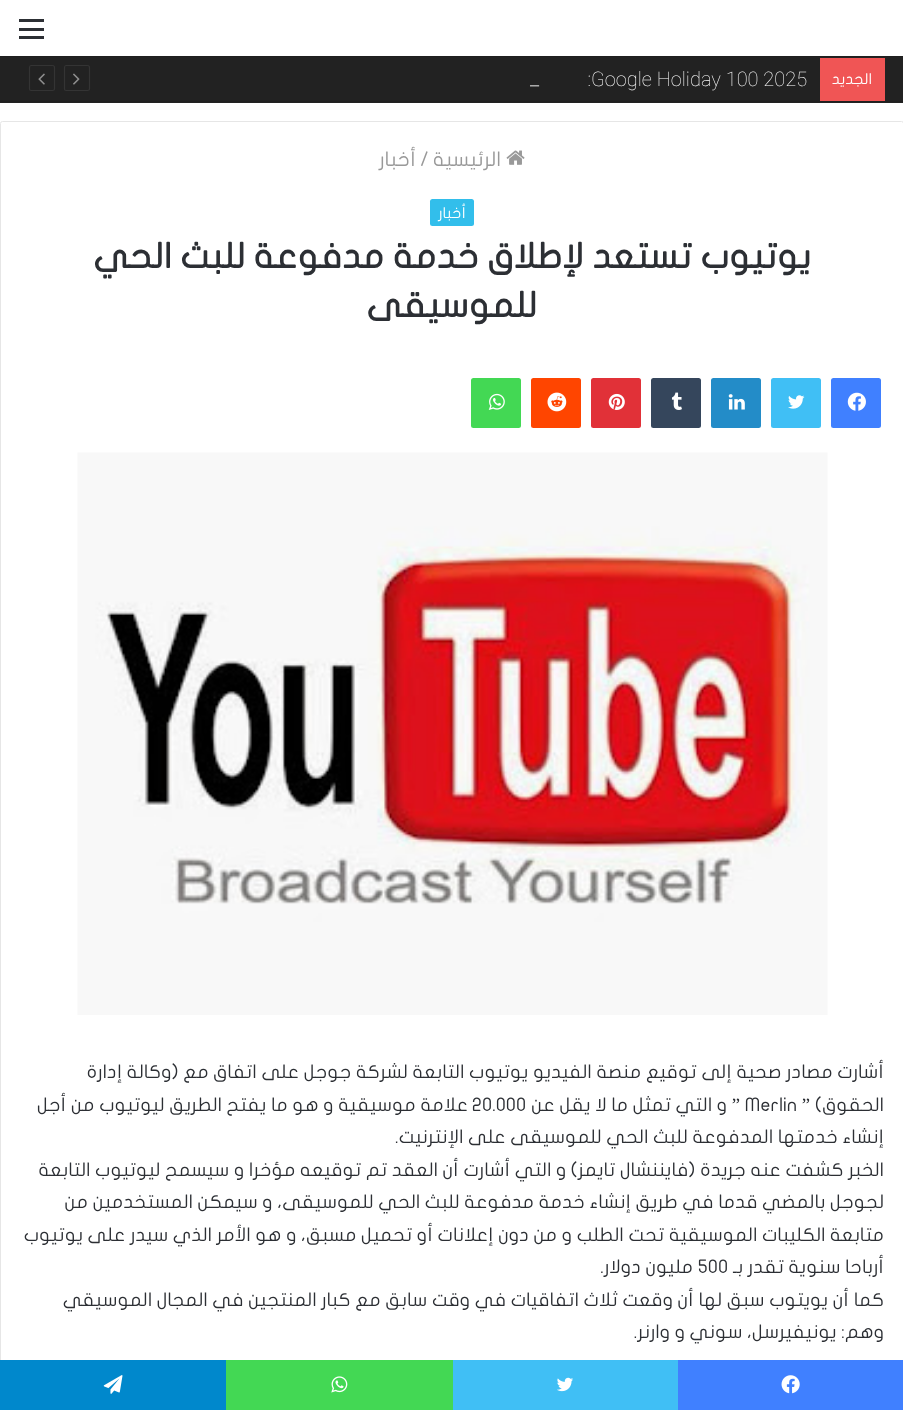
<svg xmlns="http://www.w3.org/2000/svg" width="903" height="1410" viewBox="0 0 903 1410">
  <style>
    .t1 { font: 15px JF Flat; direction: rtl; fill: #fff; }
    .t2 { font: 100 20px Roboto; fill: #fff; }
    .t3 { font: 100 20px Roboto; direction: rtl; fill: #fff; }
    .t4 { font: 20px JF Flat; fill: #aaa; }
    .t5 { font: 20px JF Flat; direction: rtl; fill: #999; }
    .t6 { font: 20px JF Flat; fill: #999; }
    .t7 { font: bold 35px JF Flat; direction: rtl; fill: #2c2f34; }
    .t8 { font: 18.75px JF Flat; direction: rtl; fill: #2c2f34; }
    .t9 { font: 18.75px Liberation Serif; direction: rtl; fill: #2c2f34; }
    .t10 { font: 18.75px JF Flat; fill: #2c2f34; }
  </style>
  <rect width="100%" height="100%" fill="#fff"/>
  <rect x="19" y="28" width="25" height="3" fill="#2c2f34"/>
  <rect x="19" y="19" width="25" height="3" fill="#2c2f34"/>
  <rect x="19" y="36" width="25" height="3" fill="#2c2f34"/>
  <rect x="0" y="57" width="903" height="46" fill="#222"/>
  <rect x="0" y="56" width="903" height="1" fill="#1f1f1f"/>
  <rect x="0" y="101" width="903" height="1" fill="#1f1f1f"/>
  <rect x="820" y="58" width="65" height="43" fill="#f05555"/>
  <text x="872" y="84" class="t1">الجديد</text>
  <text x="591" y="86" class="t2">Google Holiday 100 2025</text>
  <text x="591" y="86" class="t3">:</text>
  <text x="529" y="85" class="t4">_</text>
  <path d="M87.5 90.5H66C65 90.5 64.5 90 64.5 89V67.5C64.5 66.5 65 65.5 66 65.5H87.5C88.5 65.5 89.5 66.5 89.5 67.5V89C89.5 90 88.5 90.5 87.5 90.5Z" fill="none" stroke="#343434" stroke-width="1.2"/>
  <image x="73" y="73" width="7" height="12" href="images/1.png"/>
  <path d="M52.5 90.5H31C30 90.5 29.5 90 29.5 89V67.5C29.5 66.5 30 65.5 31 65.5H52.5C53.5 65.5 54.5 66.5 54.5 67.5V89C54.5 90 53.5 90.5 52.5 90.5Z" fill="none" stroke="#343434" stroke-width="1.2"/>
  <image x="38" y="73" width="7" height="12" href="images/2.png"/>
  <rect x="0.5" y="121.5" width="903" height="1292" rx="2" fill="none" stroke="#e6e6e6"/>
  <image x="506" y="150" width="19" height="15" href="images/3.png"/>
  <text x="501" y="166" class="t5">الرئيسية</text>
  <text x="420" y="166" class="t6">/</text>
  <text x="416" y="166" class="t5">أخبار</text>
  <rect x="430" y="199" width="44" height="27" rx="2.5" fill="#32beeb"/>
  <text x="466" y="218" class="t1">أخبار</text>
  <text x="811" y="268" class="t7">يوتيوب تستعد لإطلاق خدمة مدفوعة للبث الحي</text>
  <text x="537" y="317" class="t7">للموسيقى</text>
  <rect x="831" y="378" width="50" height="50" rx="2.5" fill="#4080ff"/>
  <image x="847" y="392" width="19" height="19" href="images/4.png"/>
  <rect x="771" y="378" width="50" height="50" rx="2.5" fill="#40bff5"/>
  <image x="788" y="395" width="17" height="14" href="images/5.png"/>
  <rect x="711" y="378" width="50" height="50" rx="2.5" fill="#238cc8"/>
  <image x="728" y="394" width="17" height="16" href="images/6.png"/>
  <rect x="651" y="378" width="50" height="50" rx="2.5" fill="#35465c"/>
  <image x="671" y="392" width="11" height="18" href="images/7.png"/>
  <rect x="591" y="378" width="50" height="50" rx="2.5" fill="#e13138"/>
  <image x="608" y="393" width="17" height="17" href="images/8.png"/>
  <rect x="531" y="378" width="50" height="50" rx="2.5" fill="#ff4500"/>
  <image x="547" y="392" width="20" height="20" href="images/9.png"/>
  <rect x="471" y="378" width="50" height="50" rx="2.5" fill="#43d854"/>
  <image x="488" y="393" width="17" height="17" href="images/10.png"/>
  <image x="77" y="452" width="751" height="563" href="images/11.png"/>
  <text x="884" y="1078" class="t8">أشارت مصادر صحية إلى توقيع منصة الفيديو يوتيوب التابعة لشركة جوجل على اتفاق مع (وكالة إدارة</text>
  <text x="884" y="1111" class="t8">الحقوق)</text>
  <text x="810" y="1111" class="t9">”</text>
  <text x="745" y="1111" class="t10">Merlin</text>
  <text x="740" y="1111" class="t9">”</text>
  <text x="727" y="1111" class="t8">و التي تمثل ما لا يقل عن</text>
  <text x="472" y="1111" class="t10">20.000</text>
  <text x="468" y="1111" class="t8">علامة موسيقية و هو ما يفتح الطريق ليوتيوب من أجل</text>
  <text x="884" y="1143" class="t8">إنشاء خدمتها المدفوعة للبث الحي للموسيقى على الإنترنيت.</text>
  <text x="884" y="1176" class="t8">الخبر كشفت عنه جريدة (فايننشال تايمز) و التي أشارت أن العقد تم توقيعه مؤخرا و سيسمح ليوتيوب التابعة</text>
  <text x="884" y="1208" class="t8">لجوجل بالمضي قدما في طريق إنشاء خدمة مدفوعة للبث الحي للموسيقى، و سيمكن المستخدمين من</text>
  <text x="884" y="1241" class="t8">متابعة الكليبات الموسيقية تحت الطلب و من دون إعلانات أو تحميل مسبق، و هو الأمر الذي سيدر على يوتيوب</text>
  <text x="884" y="1273" class="t8">أرباحا سنوية تقدر بـ</text>
  <text x="698" y="1273" class="t10">500</text>
  <text x="693" y="1273" class="t8">مليون دولار.</text>
  <text x="884" y="1306" class="t8">كما أن يويتوب سبق لها أن وقعت ثلاث اتفاقيات في وقت سابق مع كبار المنتجين في المجال الموسيقي</text>
  <text x="884" y="1338" class="t8">وهم: يونيفيرسل، سوني و وارنر.</text>
  <rect x="678" y="1360" width="225" height="50" fill="#4080ff"/>
  <image x="781" y="1375" width="19" height="19" href="images/12.png"/>
  <rect x="453" y="1360" width="225" height="50" fill="#40bff5"/>
  <image x="557" y="1377" width="16" height="15" href="images/13.png"/>
  <rect x="226" y="1360" width="227" height="50" fill="#43d854"/>
  <image x="331" y="1376" width="17" height="17" href="images/14.png"/>
  <rect x="0" y="1360" width="226" height="50" fill="#08c"/>
  <image x="103" y="1375" width="20" height="19" href="images/15.png"/>
</svg>
